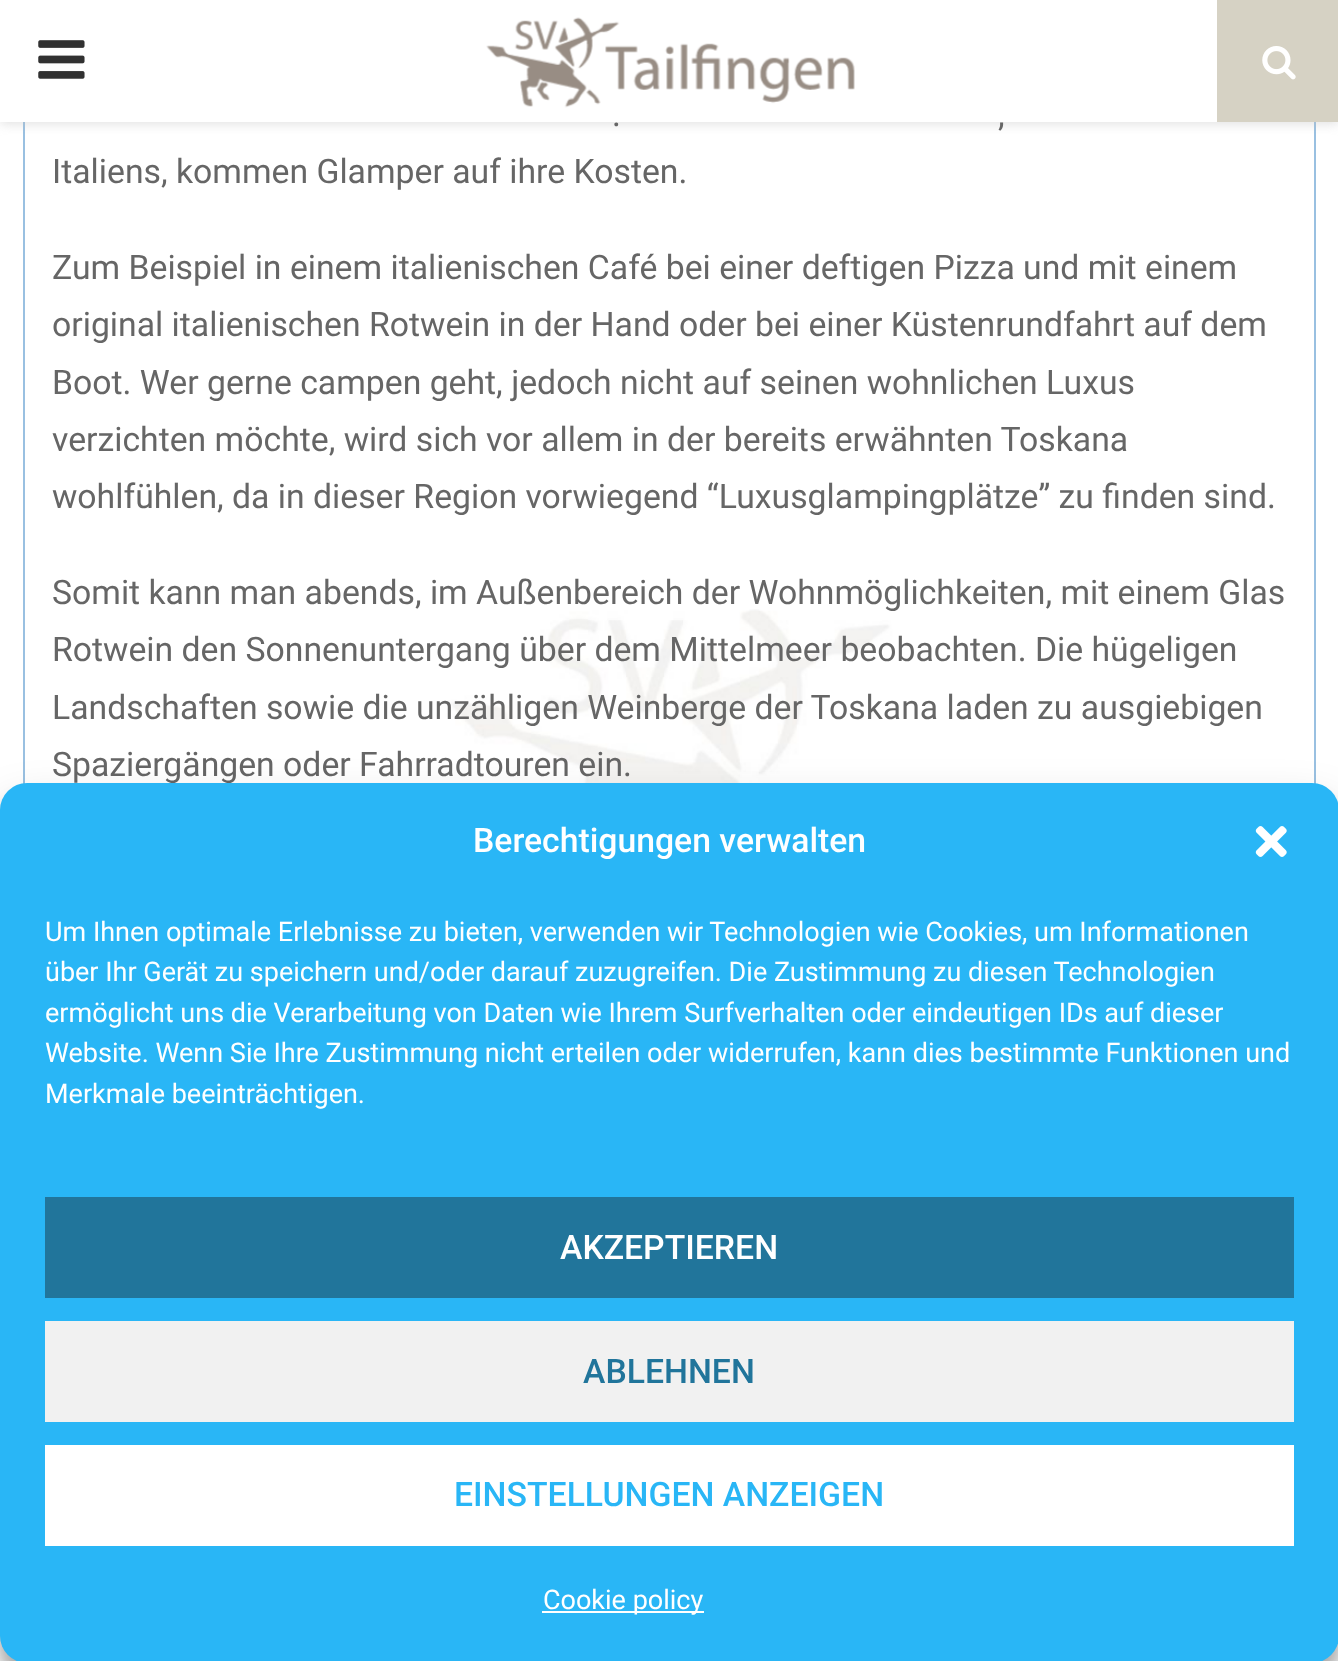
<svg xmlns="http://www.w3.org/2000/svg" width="1338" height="1661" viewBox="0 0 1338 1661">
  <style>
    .t1 { font: 33.75px Roboto; fill: #666; }
    .t2 { font: 500 33.75px Roboto; fill: #fff; }
    .t3 { font: 27px Roboto; fill: #fff; }
    .t4 { font: 500 33.75px Roboto; fill: #21759b; }
    .t5 { font: 500 33.75px Roboto; fill: #29b6f6; }
  </style>
  <rect width="100%" height="100%" fill="#fff"/>
  <image x="414" y="609" width="511" height="174" href="images/1.png"/>
  <rect x="1314" y="122" width="2" height="662" fill="#99c0e1"/>
  <rect x="23" y="122" width="2" height="662" fill="#99c0e1"/>
  <rect x="0" y="2" width="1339" height="122" fill="#bebebe75" filter="blur(5.5px)"/>
  <rect x="0" y="0" width="1217" height="122" fill="#fff"/>
  <image x="38" y="40" width="47" height="39" href="images/2.png"/>
  <image x="486" y="17" width="369" height="91" href="images/3.png"/>
  <rect x="1217" y="0" width="121" height="122" fill="#d6d2c4"/>
  <image x="1262" y="46" width="34" height="34" href="images/4.png"/>
  <text x="612" y="126" class="t1">.</text>
  <text x="998" y="126" class="t1">,</text>
  <text x="52" y="183" class="t1">Italiens, kommen Glamper auf ihre Kosten.</text>
  <text x="52" y="279" class="t1">Zum Beispiel in einem italienischen Café bei einer deftigen Pizza und mit einem</text>
  <text x="52" y="336" class="t1">original italienischen Rotwein in der Hand oder bei einer Küstenrundfahrt auf dem</text>
  <text x="52" y="394" class="t1">Boot. Wer gerne campen geht, jedoch nicht auf seinen wohnlichen Luxus</text>
  <text x="52" y="451" class="t1">verzichten möchte, wird sich vor allem in der bereits erwähnten Toskana</text>
  <text x="52" y="508" class="t1">wohlfühlen, da in dieser Region vorwiegend “Luxusglampingplätze” zu finden sind.</text>
  <text x="52" y="604" class="t1">Somit kann man abends, im Außenbereich der Wohnmöglichkeiten, mit einem Glas</text>
  <text x="52" y="661" class="t1">Rotwein den Sonnenuntergang über dem Mittelmeer beobachten. Die hügeligen</text>
  <text x="52" y="719" class="t1">Landschaften sowie die unzähligen Weinberge der Toskana laden zu ausgiebigen</text>
  <text x="52" y="776" class="t1">Spaziergängen oder Fahrradtouren ein.</text>
  <rect x="0" y="797" width="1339" height="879" rx="27" fill="#0000003b" filter="blur(7px)"/>
  <rect x="0" y="806" width="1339" height="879" rx="27" fill="#00000030" filter="blur(22.5px)"/>
  <rect x="0" y="783" width="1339" height="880" rx="27" fill="#29b6f6"/>
  <text x="473" y="852" class="t2">Berechtigungen verwalten</text>
  <image x="1255" y="826" width="32" height="31" href="images/5.png"/>
  <text x="45" y="941" class="t3">Um Ihnen optimale Erlebnisse zu bieten, verwenden wir Technologien wie Cookies, um Informationen</text>
  <text x="45" y="981" class="t3">über Ihr Gerät zu speichern und/oder darauf zuzugreifen. Die Zustimmung zu diesen Technologien</text>
  <text x="45" y="1022" class="t3">ermöglicht uns die Verarbeitung von Daten wie Ihrem Surfverhalten oder eindeutigen IDs auf dieser</text>
  <text x="45" y="1062" class="t3">Website. Wenn Sie Ihre Zustimmung nicht erteilen oder widerrufen, kann dies bestimmte Funktionen und</text>
  <text x="45" y="1103" class="t3">Merkmale beeinträchtigen.</text>
  <rect x="45" y="1197" width="1249" height="101" fill="#21759b"/>
  <text x="560" y="1259" class="t2">AKZEPTIEREN</text>
  <rect x="45" y="1321" width="1249" height="101" fill="#f1f1f1"/>
  <text x="583" y="1383" class="t4">ABLEHNEN</text>
  <rect x="45" y="1445" width="1249" height="101" fill="#fff"/>
  <text x="454" y="1506" class="t5">EINSTELLUNGEN ANZEIGEN</text>
  <rect x="542" y="1611" width="162" height="2" fill="#fff"/>
  <text x="543" y="1609" class="t3">Cookie policy</text>
</svg>
